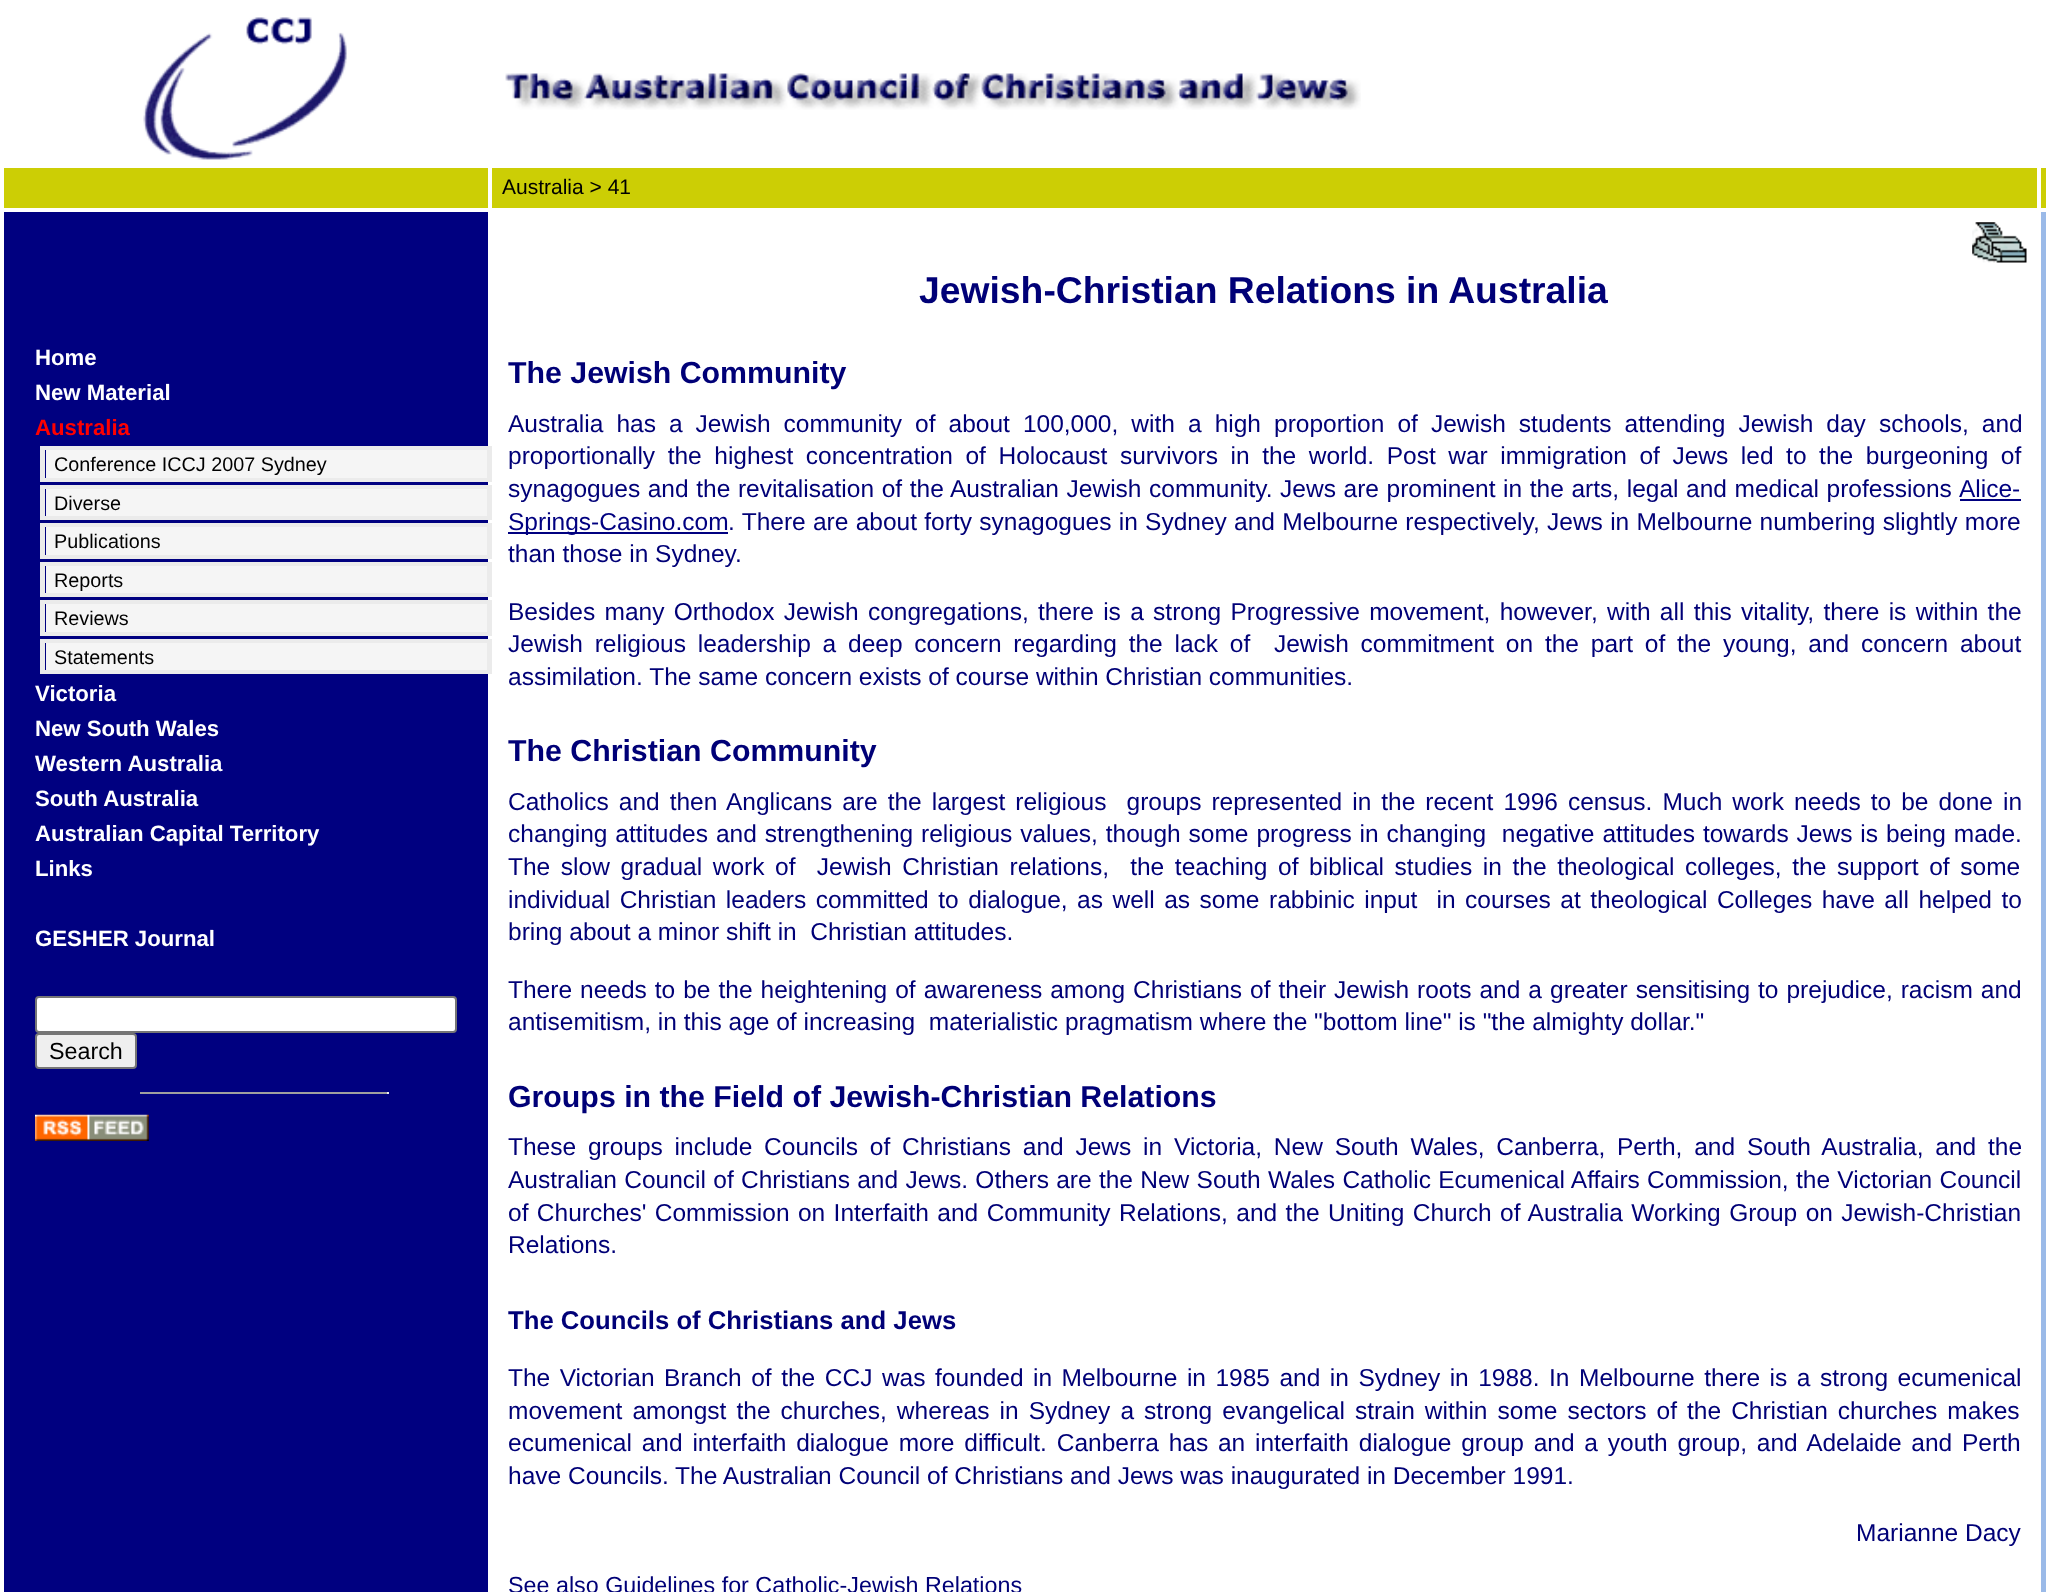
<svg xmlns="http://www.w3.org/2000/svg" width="2049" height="1592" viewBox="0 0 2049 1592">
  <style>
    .t1 { font: 21px Liberation Sans; fill: #000; }
    .t2 { font: bold 22.2px Liberation Sans; fill: #fff; }
    .t3 { font: bold 22.2px Liberation Sans; fill: #f00; }
    .t4 { font: 19.8px Liberation Sans; fill: #000; }
    .t5 { font: 23.3px Liberation Sans; fill: #000; }
    .t6 { font: bold 37.3px Liberation Sans; fill: #007; }
    .t7 { font: bold 30.3px Liberation Sans; fill: #007; }
    .t8 { font: 24.5px Liberation Sans; fill: #007; }
    .t9 { font: 24.5px Liberation Sans; fill: #000080; }
    .t10 { font: bold 25.7px Liberation Sans; fill: #007; }
    .t11 { font: 23.3px Liberation Sans; fill: #007; }
  </style>
  <rect width="100%" height="100%" fill="#fff"/>
  <image x="143" y="17" width="204" height="143" href="images/1.png"/>
  <image x="505" y="73" width="856" height="37" href="images/2.png"/>
  <rect x="4" y="168" width="484" height="40" fill="#ccce05"/>
  <rect x="492" y="168" width="1545" height="40" fill="#ccce05"/>
  <text x="502" y="194" class="t1">Australia &gt; 41</text>
  <rect x="2041" y="168" width="5" height="40" fill="#ccce05"/>
  <rect x="4" y="212" width="484" height="1380" fill="#000080"/>
  <text x="35" y="365" class="t2">Home</text>
  <text x="35" y="400" class="t2">New Material</text>
  <text x="35" y="435" class="t3">Australia</text>
  <rect x="46" y="450" width="441" height="28" fill="#f5f5f5"/>
  <rect x="40" y="446" width="455" height="4" fill="#ebebeb"/>
  <rect x="487" y="446" width="5" height="35" fill="#ebebeb"/>
  <rect x="40" y="478" width="455" height="4" fill="#ebebeb"/>
  <rect x="40" y="446" width="5" height="35" fill="#ebebeb"/>
  <text x="54" y="471" class="t4">Conference ICCJ 2007 Sydney</text>
  <rect x="46" y="489" width="441" height="27" fill="#f5f5f5"/>
  <rect x="40" y="485" width="455" height="4" fill="#ebebeb"/>
  <rect x="487" y="485" width="5" height="35" fill="#ebebeb"/>
  <rect x="40" y="516" width="455" height="4" fill="#ebebeb"/>
  <rect x="40" y="485" width="5" height="35" fill="#ebebeb"/>
  <text x="54" y="510" class="t4">Diverse</text>
  <rect x="46" y="527" width="441" height="28" fill="#f5f5f5"/>
  <rect x="40" y="523" width="455" height="4" fill="#ebebeb"/>
  <rect x="487" y="523" width="5" height="35" fill="#ebebeb"/>
  <rect x="40" y="555" width="455" height="4" fill="#ebebeb"/>
  <rect x="40" y="523" width="5" height="35" fill="#ebebeb"/>
  <text x="54" y="548" class="t4">Publications</text>
  <rect x="46" y="566" width="441" height="27" fill="#f5f5f5"/>
  <rect x="40" y="562" width="455" height="4" fill="#ebebeb"/>
  <rect x="487" y="562" width="5" height="35" fill="#ebebeb"/>
  <rect x="40" y="593" width="455" height="4" fill="#ebebeb"/>
  <rect x="40" y="562" width="5" height="35" fill="#ebebeb"/>
  <text x="54" y="587" class="t4">Reports</text>
  <rect x="46" y="604" width="441" height="28" fill="#f5f5f5"/>
  <rect x="40" y="600" width="455" height="4" fill="#ebebeb"/>
  <rect x="487" y="600" width="5" height="35" fill="#ebebeb"/>
  <rect x="40" y="632" width="455" height="4" fill="#ebebeb"/>
  <rect x="40" y="600" width="5" height="35" fill="#ebebeb"/>
  <text x="54" y="625" class="t4">Reviews</text>
  <rect x="46" y="643" width="441" height="27" fill="#f5f5f5"/>
  <rect x="40" y="639" width="455" height="4" fill="#ebebeb"/>
  <rect x="487" y="639" width="5" height="35" fill="#ebebeb"/>
  <rect x="40" y="670" width="455" height="4" fill="#ebebeb"/>
  <rect x="40" y="639" width="5" height="35" fill="#ebebeb"/>
  <text x="54" y="664" class="t4">Statements</text>
  <text x="35" y="701" class="t2">Victoria</text>
  <text x="35" y="736" class="t2">New South Wales</text>
  <text x="35" y="771" class="t2">Western Australia</text>
  <text x="35" y="806" class="t2">South Australia</text>
  <text x="35" y="841" class="t2">Australian Capital Territory</text>
  <text x="35" y="876" class="t2">Links</text>
  <text x="35" y="946" class="t2">GESHER Journal</text>
  <rect x="36" y="997" width="420" height="35" rx="3" fill="#fff" stroke="#767676" stroke-width="2"/>
  <rect x="36" y="1034" width="100" height="34" rx="3" fill="#efefef" stroke="#767676" stroke-width="2"/>
  <text x="49" y="1059" class="t5">Search</text>
  <rect x="140" y="1092" width="249" height="2" fill="#9f9f9f"/>
  <rect x="387" y="1092" width="2" height="2" fill="#eee"/>
  <image x="35" y="1114" width="114" height="27" href="images/3.png"/>
  <rect x="492" y="446" width="3" height="228" fill="#fff"/>
  <image x="1972" y="222" width="55" height="41" href="images/4.png"/>
  <text x="919" y="303" class="t6">Jewish-Christian Relations in Australia</text>
  <text x="508" y="383" class="t7">The Jewish Community</text>
  <text x="508" y="432" word-spacing="6.25" class="t8">Australia has a Jewish community of about 100,000, with a high proportion of Jewish students attending Jewish day schools, and</text>
  <text x="508" y="464" word-spacing="5.75" class="t8">proportionally the highest concentration of Holocaust survivors in the world. Post war immigration of Jews led to the burgeoning of</text>
  <text x="508" y="497" word-spacing="0.8" class="t8">synagogues and the revitalisation of the Australian Jewish community. Jews are prominent in the arts, legal and medical professions</text>
  <text x="1959" y="497" class="t9">Alice-</text>
  <rect x="1960" y="499" width="61" height="2" fill="#000080"/>
  <rect x="508" y="532" width="220" height="2" fill="#000080"/>
  <text x="508" y="530" class="t9">Springs-Casino.com</text>
  <text x="728" y="530" word-spacing="0.5" class="t8">. There are about forty synagogues in Sydney and Melbourne respectively, Jews in Melbourne numbering slightly more</text>
  <text x="508" y="562" class="t8">than those in Sydney.</text>
  <text x="508" y="620" word-spacing="2.5" class="t8">Besides many Orthodox Jewish congregations, there is a strong Progressive movement, however, with all this vitality, there is within the</text>
  <text x="508" y="652" word-spacing="5" class="t8" xml:space="preserve">Jewish religious leadership a deep concern regarding the lack of  Jewish commitment on the part of the young, and concern about</text>
  <text x="508" y="685" class="t8">assimilation. The same concern exists of course within Christian communities.</text>
  <text x="508" y="761" class="t7">The Christian Community</text>
  <text x="508" y="810" word-spacing="3.2" class="t8" xml:space="preserve">Catholics and then Anglicans are the largest religious  groups represented in the recent 1996 census. Much work needs to be done in</text>
  <text x="508" y="842" word-spacing="1.1" class="t8" xml:space="preserve">changing attitudes and strengthening religious values, though some progress in changing  negative attitudes towards Jews is being made.</text>
  <text x="508" y="875" word-spacing="3.8" class="t8" xml:space="preserve">The slow gradual work of  Jewish Christian relations,  the teaching of biblical studies in the theological colleges, the support of some</text>
  <text x="508" y="908" word-spacing="2.7" class="t8" xml:space="preserve">individual Christian leaders committed to dialogue, as well as some rabbinic input  in courses at theological Colleges have all helped to</text>
  <text x="508" y="940" class="t8" xml:space="preserve">bring about a minor shift in  Christian attitudes.</text>
  <text x="508" y="998" word-spacing="1.2" class="t8">There needs to be the heightening of awareness among Christians of their Jewish roots and a greater sensitising to prejudice, racism and</text>
  <text x="508" y="1030" class="t8" xml:space="preserve">antisemitism, in this age of increasing  materialistic pragmatism where the "bottom line" is "the almighty dollar."</text>
  <text x="508" y="1107" class="t7">Groups in the Field of Jewish-Christian Relations</text>
  <text x="508" y="1155" word-spacing="5" class="t8">These groups include Councils of Christians and Jews in Victoria, New South Wales, Canberra, Perth, and South Australia, and the</text>
  <text x="508" y="1188" word-spacing="0.5" class="t8">Australian Council of Christians and Jews. Others are the New South Wales Catholic Ecumenical Affairs Commission, the Victorian Council</text>
  <text x="508" y="1221" word-spacing="1.6" class="t8">of Churches' Commission on Interfaith and Community Relations, and the Uniting Church of Australia Working Group on Jewish-Christian</text>
  <text x="508" y="1253" class="t8">Relations.</text>
  <text x="508" y="1329" class="t10">The Councils of Christians and Jews</text>
  <text x="508" y="1386" word-spacing="2.7" class="t8">The Victorian Branch of the CCJ was founded in Melbourne in 1985 and in Sydney in 1988. In Melbourne there is a strong ecumenical</text>
  <text x="508" y="1419" word-spacing="3.25" class="t8">movement amongst the churches, whereas in Sydney a strong evangelical strain within some sectors of the Christian churches makes</text>
  <text x="508" y="1451" word-spacing="3" class="t8">ecumenical and interfaith dialogue more difficult. Canberra has an interfaith dialogue group and a youth group, and Adelaide and Perth</text>
  <text x="508" y="1484" class="t8">have Councils. The Australian Council of Christians and Jews was inaugurated in December 1991.</text>
  <text x="1856" y="1541" class="t8">Marianne Dacy</text>
  <text x="508" y="1593" class="t11">See also Guidelines for Catholic-Jewish Relations</text>
  <rect x="2041" y="212" width="5" height="1380" fill="#9bbae8"/>
</svg>
